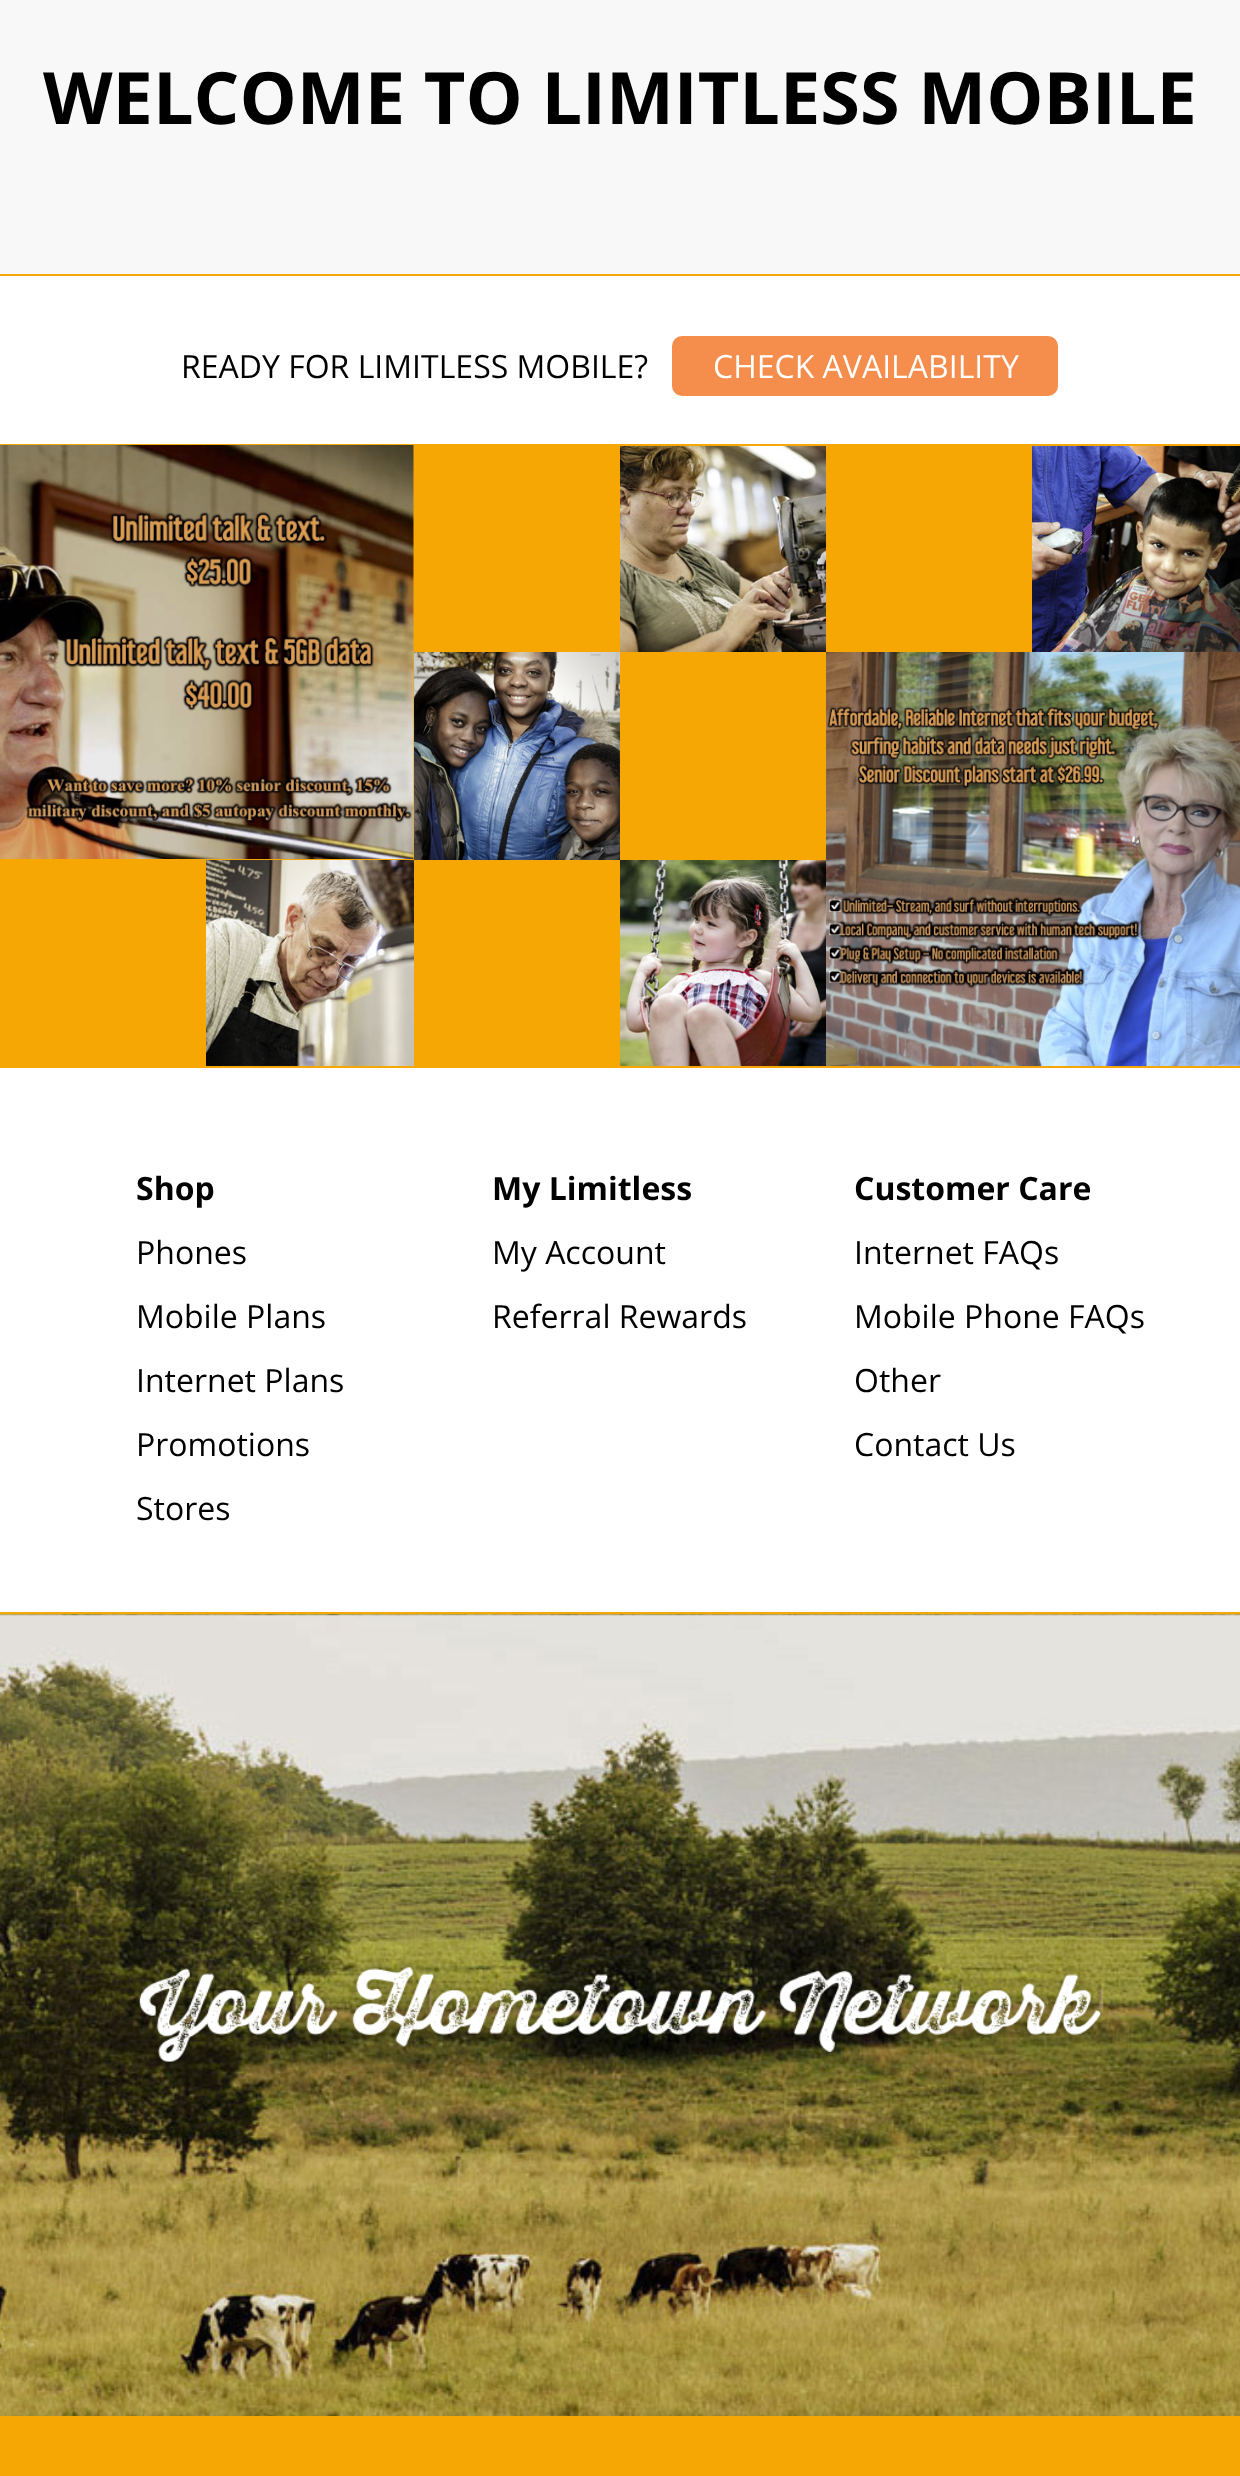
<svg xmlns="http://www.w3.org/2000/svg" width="1240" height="2476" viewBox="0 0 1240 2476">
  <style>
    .t1 { font: bold 72px Open Sans; fill: #000; }
    .t2 { font: 32px Open Sans; fill: #000; }
    .t3 { font: 32px Open Sans; fill: #fff; }
    .t4 { font: bold 32px Open Sans; fill: #000; }
  </style>
  <rect width="100%" height="100%" fill="#f6a704"/>
  <rect x="0" y="0" width="1240" height="274" fill="#f8f8f8"/>
  <text x="43" y="124" class="t1">WELCOME TO LIMITLESS MOBILE</text>
  <rect x="0" y="276" width="1240" height="168" fill="#fff"/>
  <text x="181" y="378" class="t2">READY FOR LIMITLESS MOBILE?</text>
  <rect x="672" y="336" width="386" height="60" rx="10" fill="#f58d4d"/>
  <text x="713" y="378" class="t3">CHECK AVAILABILITY</text>
  <image x="0" y="445" width="414" height="414" href="images/1.png"/>
  <image x="206" y="860" width="208" height="206" href="images/2.png"/>
  <image x="620" y="446" width="206" height="206" href="images/3.png"/>
  <image x="414" y="652" width="206" height="208" href="images/4.png"/>
  <image x="620" y="860" width="206" height="206" href="images/5.png"/>
  <image x="1032" y="446" width="208" height="206" href="images/6.png"/>
  <image x="826" y="652" width="414" height="414" href="images/7.png"/>
  <rect x="0" y="1068" width="1240" height="544" fill="#fff"/>
  <text x="136" y="1200" class="t4">Shop</text>
  <text x="136" y="1264" class="t2">Phones</text>
  <text x="136" y="1328" class="t2">Mobile Plans</text>
  <text x="136" y="1392" class="t2">Internet Plans</text>
  <text x="136" y="1456" class="t2">Promotions</text>
  <text x="136" y="1520" class="t2">Stores</text>
  <text x="492" y="1200" class="t4">My Limitless</text>
  <text x="492" y="1264" class="t2">My Account</text>
  <text x="492" y="1328" class="t2">Referral Rewards</text>
  <text x="854" y="1200" class="t4">Customer Care</text>
  <text x="854" y="1264" class="t2">Internet FAQs</text>
  <text x="854" y="1328" class="t2">Mobile Phone FAQs</text>
  <text x="854" y="1392" class="t2">Other</text>
  <text x="854" y="1456" class="t2">Contact Us</text>
  <image x="0" y="1614" width="1240" height="802" href="images/8.png"/>
  <image x="137" y="1962" width="967" height="100" href="images/9.png"/>
</svg>
